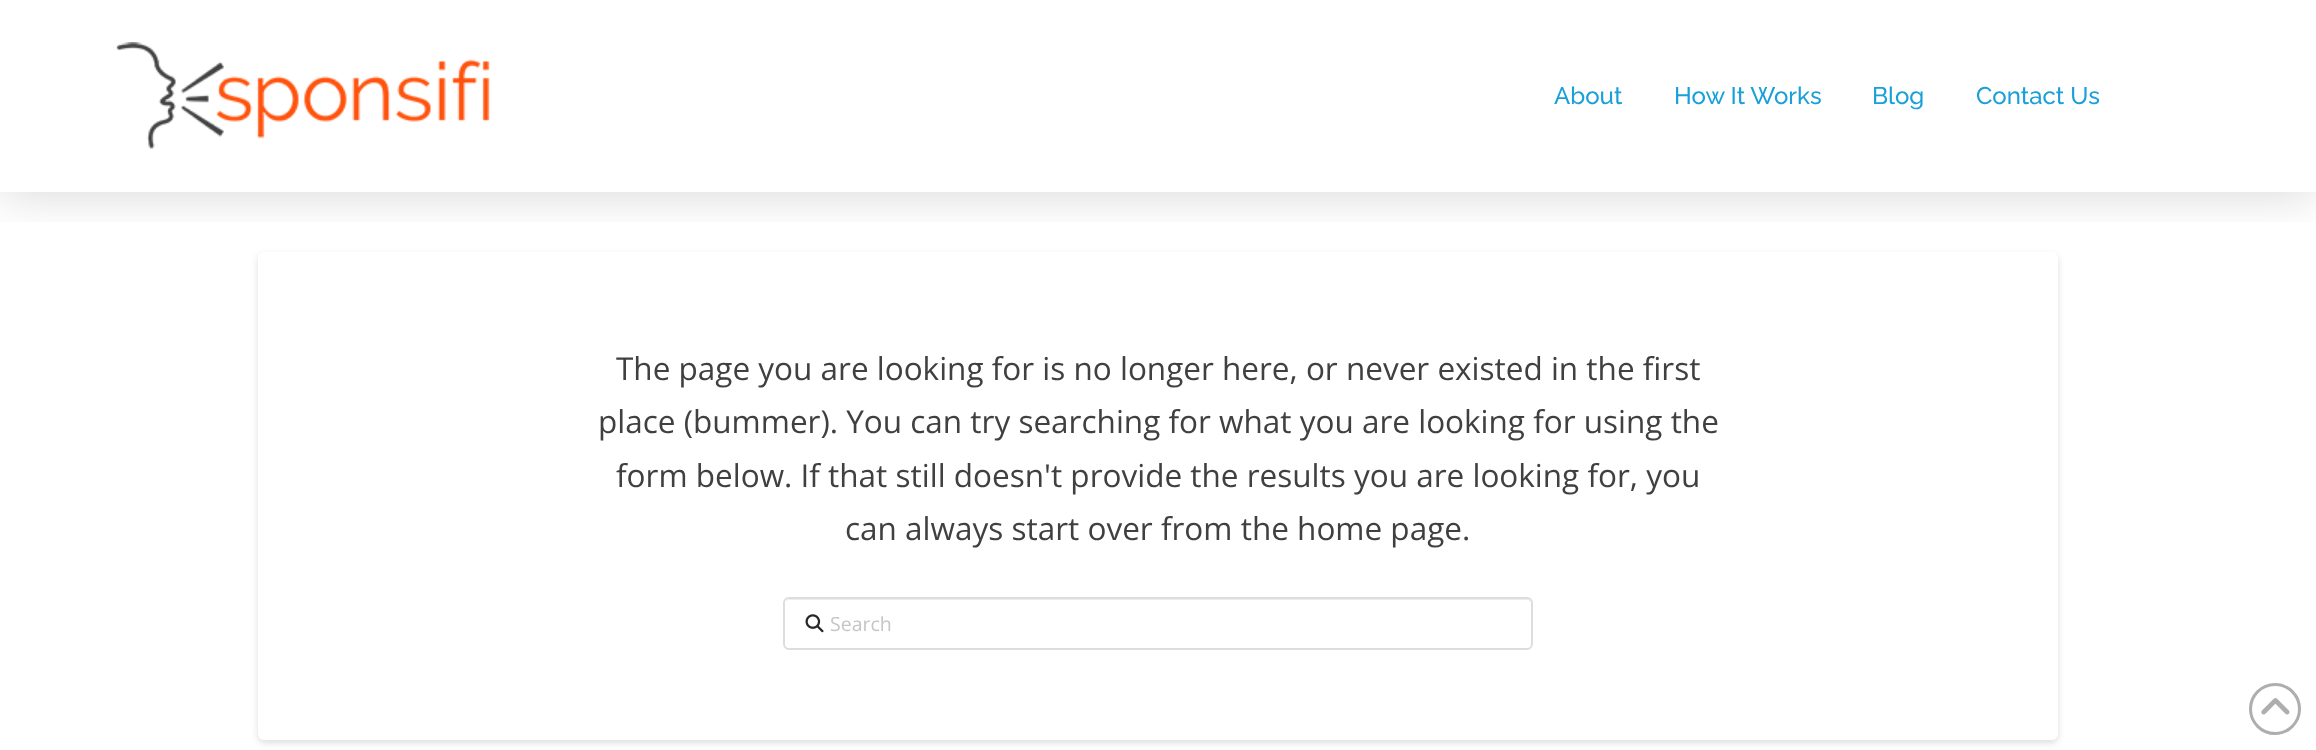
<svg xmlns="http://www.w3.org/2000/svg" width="2316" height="750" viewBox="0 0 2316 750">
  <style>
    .t1 { font: 500 24px Raleway; fill: #19a0d8; }
    .t2 { font: 31.5px Open Sans; fill: #404040; }
    .t3 { font: 19.5px Open Sans; fill: #c5c5c5; }
  </style>
  <defs>
    <clipPath id="clip1"><rect x="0" y="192" width="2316" height="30"/></clipPath>
  </defs>
  <rect width="100%" height="100%" fill="#fff"/>
  <rect x="258" y="255" width="1800" height="488" rx="6" fill="#00000021" filter="blur(3.5px)"/>
  <rect x="258" y="252" width="1800" height="488" rx="6" fill="#fff"/>
  <g clip-path="url(#clip1)">
    <rect x="0" y="3" width="2316" height="192" fill="#00000026" filter="blur(24px)"/>
  </g>
  <image x="116" y="42" width="374" height="107" href="images/1.png"/>
  <text x="1554" y="104" class="t1">About</text>
  <text x="1674" y="104" class="t1">How It Works</text>
  <text x="1872" y="104" class="t1">Blog</text>
  <text x="1976" y="104" class="t1">Contact Us</text>
  <text x="616" y="380" class="t2">The page you are looking for is no longer here, or never existed in the first</text>
  <text x="598" y="433" class="t2">place (bummer). You can try searching for what you are looking for using the</text>
  <text x="616" y="487" class="t2">form below. If that still doesn't provide the results you are looking for, you</text>
  <text x="845" y="540" class="t2">can always start over from the home page.</text>
  <path d="M789 600H1527C1529 600 1532 602 1532 604C1532 601 1530 599 1527 599H790C788 599 787 600 786 601Z" fill="#ececec"/>
  <rect x="784" y="598" width="748" height="51" rx="5" fill="none" stroke="#ddd" stroke-width="2"/>
  <image x="805" y="614" width="19" height="19" href="images/2.png"/>
  <text x="830" y="631" class="t3">Search</text>
  <circle cx="2275" cy="709" r="24.5" fill="none" stroke="#aeaeae" stroke-width="3"/>
  <image x="2261" y="698" width="29" height="17" href="images/3.png"/>
</svg>
